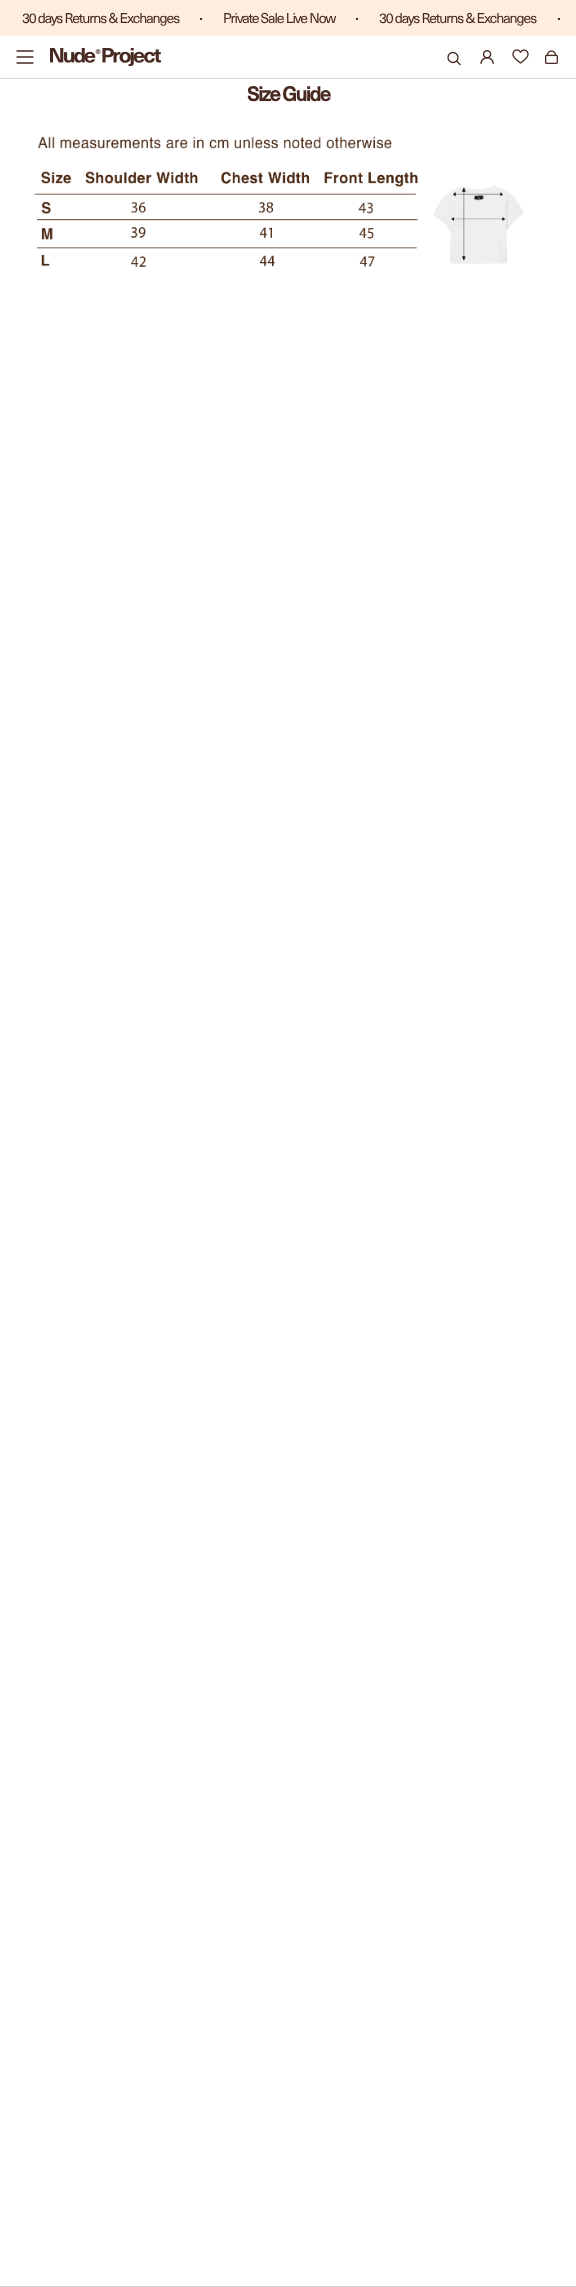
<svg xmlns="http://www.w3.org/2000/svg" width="576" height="2287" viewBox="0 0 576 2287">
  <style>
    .t1 { font: 14px 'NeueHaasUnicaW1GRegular'; letter-spacing: -1.05px; fill: #482922; }
    .t2 { font: bold 20px 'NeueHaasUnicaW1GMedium'; letter-spacing: -1.5px; fill: #482922; }
  </style>
  <rect width="100%" height="100%" fill="#fff"/>
  <rect x="0" y="0" width="576" height="36" fill="#ffeede"/>
  <text x="22" y="23" class="t1">30 days Returns &amp; Exchanges</text>
  <rect x="200" y="18" width="2" height="2" fill="#482922"/>
  <text x="223" y="23" class="t1">Private Sale Live Now</text>
  <rect x="356" y="18" width="2" height="2" fill="#482922"/>
  <text x="379" y="23" class="t1">30 days Returns &amp; Exchanges</text>
  <rect x="558" y="18" width="2" height="2" fill="#482922"/>
  <rect x="0" y="78" width="576" height="1" fill="#dad4d3"/>
  <path d="M17 51H33M17 63H33M17 57H33" fill="none" stroke="#482922" stroke-width="1.3" stroke-linecap="round" stroke-linejoin="round"/>
  <image x="50" y="48" width="111" height="18" href="images/1.png"/>
  <circle cx="453" cy="57.5" r="5" fill="none" stroke="#482922" stroke-width="1.3"/>
  <path d="M456.5 61L460 64.5" fill="none" stroke="#482922" stroke-width="1.3" stroke-linecap="round" stroke-linejoin="round"/>
  <image x="480" y="50" width="14" height="14" href="images/2.png"/>
  <image x="512" y="49" width="17" height="15" href="images/3.png"/>
  <image x="545" y="50" width="13" height="14" href="images/4.png"/>
  <rect x="0" y="2286" width="576" height="1" fill="#dad4d3"/>
  <text x="247" y="101" class="t2">Size Guide</text>
  <image x="34" y="136" width="490" height="131" href="images/5.png"/>
</svg>
